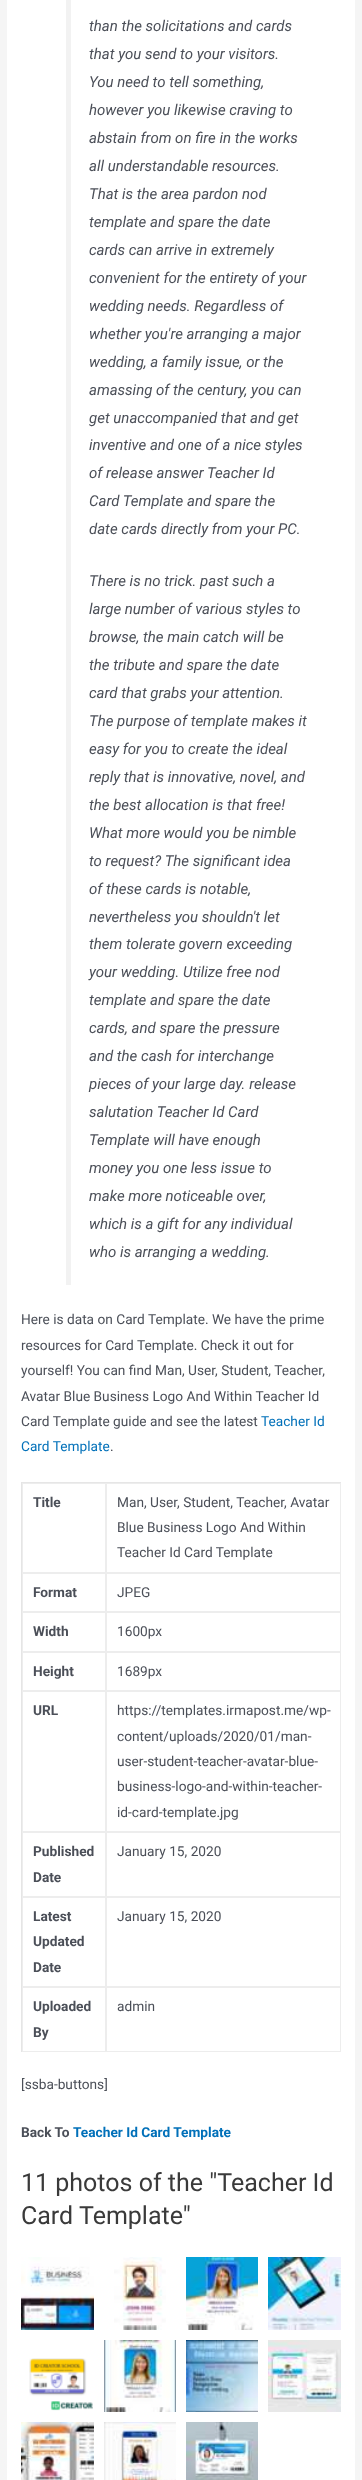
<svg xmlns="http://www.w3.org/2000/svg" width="362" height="2480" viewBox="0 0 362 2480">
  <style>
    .t1 { font: italic 15px Roboto; fill: #4b4f58; }
    .t2 { font: 13.7px Roboto; fill: #4b4f58; }
    .t3 { font: 13.7px Roboto; fill: #0170b9; }
    .t4 { font: bold 13.7px Roboto; fill: #4b4f58; }
    .t5 { font: bold 13.7px Roboto; fill: #0170b9; }
    .t6 { font: 25px Roboto; fill: #3a3a3a; }
  </style>
  <rect width="100%" height="100%" fill="#f5f5f5"/>
  <rect x="7" y="0" width="348" height="2480" fill="#fff"/>
  <rect x="66" y="0" width="5" height="1285" fill="#f2f2f2"/>
  <text x="89" y="31" class="t1">than the solicitations and cards</text>
  <text x="89" y="59" class="t1">that you send to your visitors.</text>
  <text x="89" y="87" class="t1">You need to tell something,</text>
  <text x="89" y="115" class="t1">however you likewise craving to</text>
  <text x="89" y="143" class="t1">abstain from on fire in the works</text>
  <text x="89" y="171" class="t1">all understandable resources.</text>
  <text x="89" y="199" class="t1">That is the area pardon nod</text>
  <text x="89" y="227" class="t1">template and spare the date</text>
  <text x="89" y="255" class="t1">cards can arrive in extremely</text>
  <text x="89" y="283" class="t1">convenient for the entirety of your</text>
  <text x="89" y="311" class="t1">wedding needs. Regardless of</text>
  <text x="89" y="339" class="t1">whether you're arranging a major</text>
  <text x="89" y="367" class="t1">wedding, a family issue, or the</text>
  <text x="89" y="395" class="t1">amassing of the century, you can</text>
  <text x="89" y="423" class="t1">get unaccompanied that and get</text>
  <text x="89" y="450" class="t1">inventive and one of a nice styles</text>
  <text x="89" y="478" class="t1">of release answer Teacher Id</text>
  <text x="89" y="506" class="t1">Card Template and spare the</text>
  <text x="89" y="534" class="t1">date cards directly from your PC.</text>
  <text x="89" y="586" class="t1">There is no trick. past such a</text>
  <text x="89" y="614" class="t1">large number of various styles to</text>
  <text x="89" y="642" class="t1">browse, the main catch will be</text>
  <text x="89" y="670" class="t1">the tribute and spare the date</text>
  <text x="89" y="698" class="t1">card that grabs your attention.</text>
  <text x="89" y="726" class="t1">The purpose of template makes it</text>
  <text x="89" y="754" class="t1">easy for you to create the ideal</text>
  <text x="89" y="782" class="t1">reply that is innovative, novel, and</text>
  <text x="89" y="810" class="t1">the best allocation is that free!</text>
  <text x="89" y="838" class="t1">What more would you be nimble</text>
  <text x="89" y="866" class="t1">to request? The significant idea</text>
  <text x="89" y="894" class="t1">of these cards is notable,</text>
  <text x="89" y="922" class="t1">nevertheless you shouldn't let</text>
  <text x="89" y="949" class="t1">them tolerate govern exceeding</text>
  <text x="89" y="977" class="t1">your wedding. Utilize free nod</text>
  <text x="89" y="1005" class="t1">template and spare the date</text>
  <text x="89" y="1033" class="t1">cards, and spare the pressure</text>
  <text x="89" y="1061" class="t1">and the cash for interchange</text>
  <text x="89" y="1089" class="t1">pieces of your large day. release</text>
  <text x="89" y="1117" class="t1">salutation Teacher Id Card</text>
  <text x="89" y="1145" class="t1">Template will have enough</text>
  <text x="89" y="1173" class="t1">money you one less issue to</text>
  <text x="89" y="1201" class="t1">make more noticeable over,</text>
  <text x="89" y="1229" class="t1">which is a gift for any individual</text>
  <text x="89" y="1257" class="t1">who is arranging a wedding.</text>
  <text x="21" y="1324" class="t2">Here is data on Card Template. We have the prime</text>
  <text x="21" y="1350" class="t2">resources for Card Template. Check it out for</text>
  <text x="21" y="1375" class="t2">yourself! You can find Man, User, Student, Teacher,</text>
  <text x="21" y="1401" class="t2">Avatar Blue Business Logo And Within Teacher Id</text>
  <text x="21" y="1426" class="t2">Card Template guide and see the latest</text>
  <text x="261" y="1426" class="t3">Teacher Id</text>
  <text x="21" y="1451" class="t3">Card Template</text>
  <text x="110" y="1451" class="t2">.</text>
  <path d="M21 1482H341V1483H22Z" fill="#e6e6e6"/>
  <path d="M21 2052V1482L22 1483V2052Z" fill="#0000001a"/>
  <rect x="22.5" y="1483.5" width="83" height="89" fill="none" stroke="#ededed"/>
  <text x="33" y="1507" class="t4">Title</text>
  <rect x="106.5" y="1483.5" width="234" height="89" fill="none" stroke="#ededed"/>
  <text x="117" y="1507" class="t2">Man, User, Student, Teacher, Avatar</text>
  <text x="117" y="1532" class="t2">Blue Business Logo And Within</text>
  <text x="117" y="1557" class="t2">Teacher Id Card Template</text>
  <rect x="22.5" y="1573.5" width="83" height="38" fill="none" stroke="#ededed"/>
  <text x="33" y="1597" class="t4">Format</text>
  <rect x="106.5" y="1573.5" width="234" height="38" fill="none" stroke="#ededed"/>
  <text x="117" y="1597" class="t2">JPEG</text>
  <rect x="22.5" y="1612.5" width="83" height="39" fill="none" stroke="#ededed"/>
  <text x="33" y="1636" class="t4">Width</text>
  <rect x="106.5" y="1612.5" width="234" height="39" fill="none" stroke="#ededed"/>
  <text x="117" y="1636" class="t2">1600px</text>
  <rect x="22.5" y="1652.5" width="83" height="38" fill="none" stroke="#ededed"/>
  <text x="33" y="1676" class="t4">Height</text>
  <rect x="106.5" y="1652.5" width="234" height="38" fill="none" stroke="#ededed"/>
  <text x="117" y="1676" class="t2">1689px</text>
  <rect x="22.5" y="1691.5" width="83" height="140" fill="none" stroke="#ededed"/>
  <text x="33" y="1715" class="t4">URL</text>
  <rect x="106.5" y="1691.5" width="234" height="140" fill="none" stroke="#ededed"/>
  <text x="117" y="1715" class="t2">https://templates.irmapost.me/wp-</text>
  <text x="117" y="1741" class="t2">content/uploads/2020/01/man-</text>
  <text x="117" y="1766" class="t2">user-student-teacher-avatar-blue-</text>
  <text x="117" y="1791" class="t2">business-logo-and-within-teacher-</text>
  <text x="117" y="1817" class="t2">id-card-template.jpg</text>
  <rect x="22.5" y="1832.5" width="83" height="64" fill="none" stroke="#ededed"/>
  <text x="33" y="1856" class="t4">Published</text>
  <text x="33" y="1882" class="t4">Date</text>
  <rect x="106.5" y="1832.5" width="234" height="64" fill="none" stroke="#ededed"/>
  <text x="117" y="1856" class="t2">January 15, 2020</text>
  <rect x="22.5" y="1897.5" width="83" height="89" fill="none" stroke="#ededed"/>
  <text x="33" y="1921" class="t4">Latest</text>
  <text x="33" y="1946" class="t4">Updated</text>
  <text x="33" y="1972" class="t4">Date</text>
  <rect x="106.5" y="1897.5" width="234" height="89" fill="none" stroke="#ededed"/>
  <text x="117" y="1921" class="t2">January 15, 2020</text>
  <rect x="22.5" y="1987.5" width="83" height="64" fill="none" stroke="#ededed"/>
  <text x="33" y="2011" class="t4">Uploaded</text>
  <text x="33" y="2037" class="t4">By</text>
  <rect x="106.5" y="1987.5" width="234" height="64" fill="none" stroke="#ededed"/>
  <text x="117" y="2011" class="t2">admin</text>
  <text x="21" y="2089" class="t2">[ssba-buttons]</text>
  <text x="21" y="2137" class="t4">Back To</text>
  <text x="73" y="2137" class="t5">Teacher Id Card Template</text>
  <text x="21" y="2191" class="t6">11 photos of the "Teacher Id</text>
  <text x="21" y="2224" class="t6">Card Template"</text>
  <image x="21" y="2257" width="73" height="73" href="images/1.png"/>
  <image x="114" y="2257" width="52" height="73" href="images/2.png"/>
  <image x="186" y="2257" width="72" height="73" href="images/3.png"/>
  <image x="268" y="2257" width="73" height="73" href="images/4.png"/>
  <image x="29" y="2358" width="64" height="53" href="images/5.png"/>
  <image x="104" y="2340" width="72" height="72" href="images/6.png"/>
  <image x="186" y="2340" width="72" height="72" href="images/7.png"/>
  <image x="268" y="2340" width="73" height="72" href="images/8.png"/>
  <image x="21" y="2422" width="73" height="58" href="images/9.png"/>
  <image x="104" y="2422" width="72" height="58" href="images/10.png"/>
  <image x="186" y="2422" width="72" height="58" href="images/11.png"/>
</svg>
